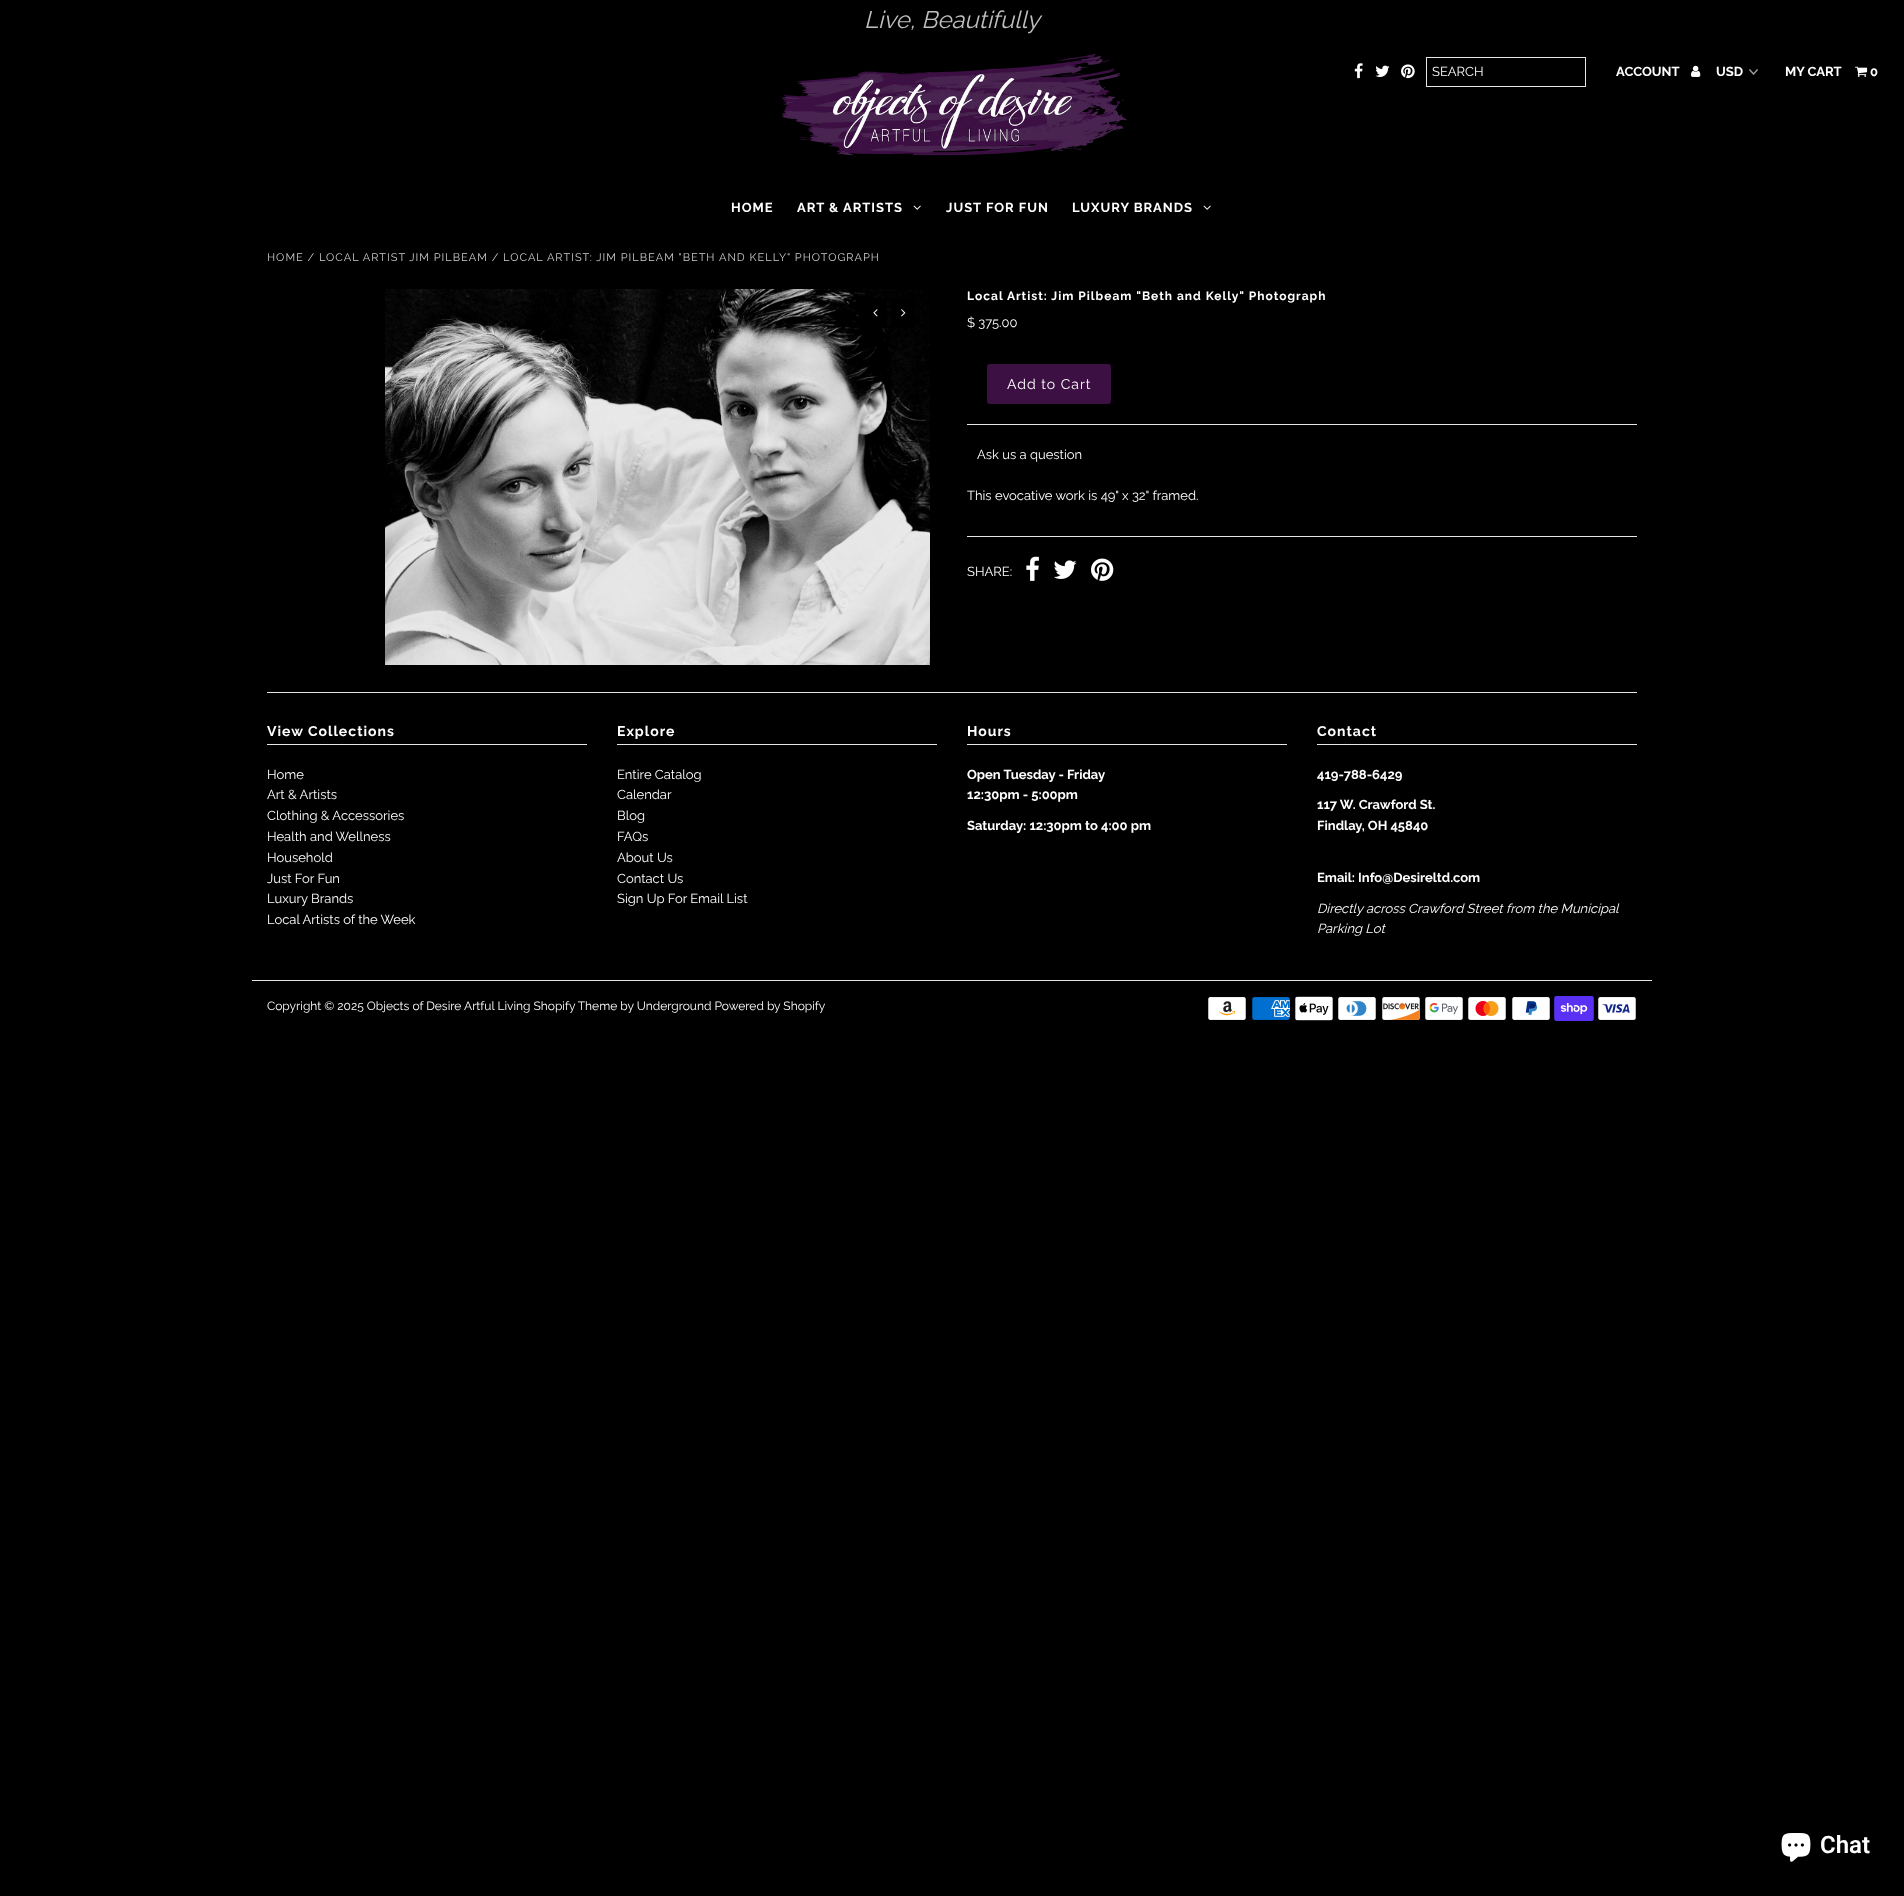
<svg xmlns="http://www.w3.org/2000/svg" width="1904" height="1896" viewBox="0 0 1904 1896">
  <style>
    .t1 { font: italic 24px Raleway; fill: #bfbfbf; }
    .t2 { font: 13px Raleway; fill: #fff; }
    .t3 { font: bold 13px Raleway; fill: #fff; }
    .t4 { font: bold 13px Raleway; letter-spacing: 1px; fill: #fff; }
    .t5 { font: 11px Raleway; letter-spacing: 1px; fill: #ccc; }
    .t6 { font: bold 12px Raleway; letter-spacing: 1px; fill: #fff; }
    .t7 { font: 14px Raleway; letter-spacing: 1px; fill: #fff; }
    .t8 { font: bold 14px Raleway; letter-spacing: 1px; fill: #fff; }
    .t9 { font: italic 13px Raleway; fill: #fff; }
    .t10 { font: 12px Raleway; fill: #fff; }
    .t11 { font: 600 24px Roboto; fill: #fff; }
  </style>
  <rect width="100%" height="100%" fill="#000"/>
  <text x="864" y="28" class="t1">Live, Beautifully</text>
  <image x="780" y="53" width="347" height="103" href="images/1.png"/>
  <image x="1354" y="63" width="9" height="16" href="images/2.png"/>
  <image x="1375" y="65" width="15" height="12" href="images/3.png"/>
  <image x="1401" y="64" width="14" height="15" href="images/4.png"/>
  <rect x="1426.5" y="57.5" width="159" height="29" fill="none" stroke="#e5e5e5"/>
  <text x="1432" y="76" class="t2">SEARCH</text>
  <text x="1616" y="76" class="t3">ACCOUNT</text>
  <image x="1691" y="65" width="10" height="12" href="images/5.png"/>
  <image x="1749" y="69" width="9" height="6" href="images/6.png"/>
  <text x="1716" y="76" class="t3">USD</text>
  <text x="1785" y="76" class="t3">MY CART</text>
  <image x="1855" y="66" width="13" height="11" href="images/7.png"/>
  <text x="1870" y="76" class="t3">0</text>
  <text x="731" y="212" class="t4">HOME</text>
  <text x="797" y="212" class="t4">ART &amp; ARTISTS</text>
  <image x="913" y="205" width="8" height="5" href="images/8.png"/>
  <text x="946" y="212" class="t4">JUST FOR FUN</text>
  <text x="1072" y="212" class="t4">LUXURY BRANDS</text>
  <image x="1203" y="205" width="8" height="5" href="images/8.png"/>
  <text x="267" y="261" class="t5">HOME / LOCAL ARTIST JIM PILBEAM / LOCAL ARTIST: JIM PILBEAM "BETH AND KELLY" PHOTOGRAPH</text>
  <image x="385" y="289" width="545" height="376" href="images/9.png"/>
  <rect x="865" y="299" width="22" height="29" fill="#000"/>
  <image x="873" y="309" width="5" height="8" href="images/10.png"/>
  <rect x="891" y="299" width="24" height="29" fill="#000"/>
  <image x="901" y="309" width="5" height="8" href="images/11.png"/>
  <text x="967" y="300" class="t6">Local Artist: Jim Pilbeam "Beth and Kelly" Photograph</text>
  <text x="967" y="327" class="t2">$ 375.00</text>
  <rect x="967" y="424" width="670" height="1" fill="#e5e5e5"/>
  <rect x="987" y="364" width="124" height="40" rx="3" fill="#3d1044"/>
  <text x="1007" y="389" class="t7">Add to Cart</text>
  <text x="977" y="459" class="t2">Ask us a question</text>
  <text x="967" y="500" class="t2">This evocative work is 49" x 32" framed.</text>
  <rect x="967" y="536" width="670" height="1" fill="#e5e5e5"/>
  <text x="967" y="576" class="t2">SHARE:</text>
  <image x="1026" y="556" width="13" height="25" href="images/12.png"/>
  <image x="1053" y="560" width="24" height="19" href="images/13.png"/>
  <image x="1091" y="558" width="23" height="23" href="images/14.png"/>
  <rect x="267" y="692" width="1370" height="1" fill="#e5e5e5"/>
  <rect x="267" y="744" width="320" height="1" fill="#e5e5e5"/>
  <text x="267" y="736" class="t8">View Collections</text>
  <text x="267" y="779" class="t2">Home</text>
  <text x="267" y="799" class="t2">Art &amp; Artists</text>
  <text x="267" y="820" class="t2">Clothing &amp; Accessories</text>
  <text x="267" y="841" class="t2">Health and Wellness</text>
  <text x="267" y="862" class="t2">Household</text>
  <text x="267" y="883" class="t2">Just For Fun</text>
  <text x="267" y="903" class="t2">Luxury Brands</text>
  <text x="267" y="924" class="t2">Local Artists of the Week</text>
  <rect x="617" y="744" width="320" height="1" fill="#e5e5e5"/>
  <text x="617" y="736" class="t8">Explore</text>
  <text x="617" y="779" class="t2">Entire Catalog</text>
  <text x="617" y="799" class="t2">Calendar</text>
  <text x="617" y="820" class="t2">Blog</text>
  <text x="617" y="841" class="t2">FAQs</text>
  <text x="617" y="862" class="t2">About Us</text>
  <text x="617" y="883" class="t2">Contact Us</text>
  <text x="617" y="903" class="t2">Sign Up For Email List</text>
  <rect x="967" y="744" width="320" height="1" fill="#e5e5e5"/>
  <text x="967" y="736" class="t8">Hours</text>
  <text x="967" y="779" class="t3">Open Tuesday - Friday</text>
  <text x="967" y="799" class="t3">12:30pm - 5:00pm</text>
  <text x="967" y="830" class="t3">Saturday: 12:30pm to 4:00 pm</text>
  <rect x="1317" y="744" width="320" height="1" fill="#e5e5e5"/>
  <text x="1317" y="736" class="t8">Contact</text>
  <text x="1317" y="779" class="t3">419-788-6429</text>
  <text x="1317" y="809" class="t3">117 W. Crawford St.</text>
  <text x="1317" y="830" class="t3">Findlay, OH 45840</text>
  <text x="1317" y="882" class="t3">Email: Info@Desireltd.com</text>
  <text x="1317" y="913" class="t9">Directly across Crawford Street from the Municipal</text>
  <text x="1317" y="933" class="t9">Parking Lot</text>
  <rect x="252" y="980" width="1400" height="1" fill="#e5e5e5"/>
  <text x="267" y="1010" class="t10">Copyright © 2025 Objects of Desire Artful Living Shopify Theme by Underground Powered by Shopify</text>
  <image x="1208" y="997" width="38" height="23" href="images/15.png"/>
  <image x="1252" y="997" width="38" height="23" href="images/16.png"/>
  <image x="1295" y="996" width="38" height="25" href="images/17.png"/>
  <image x="1338" y="997" width="38" height="23" href="images/18.png"/>
  <image x="1382" y="997" width="38" height="23" href="images/19.png"/>
  <image x="1425" y="997" width="38" height="23" href="images/20.png"/>
  <image x="1468" y="997" width="38" height="23" href="images/21.png"/>
  <image x="1512" y="997" width="38" height="23" href="images/22.png"/>
  <image x="1554" y="996" width="40" height="25" href="images/23.png"/>
  <image x="1598" y="997" width="38" height="23" href="images/24.png"/>
  <image x="1781" y="1833" width="30" height="29" href="images/25.png"/>
  <text x="1820" y="1853" class="t11">Chat</text>
</svg>
